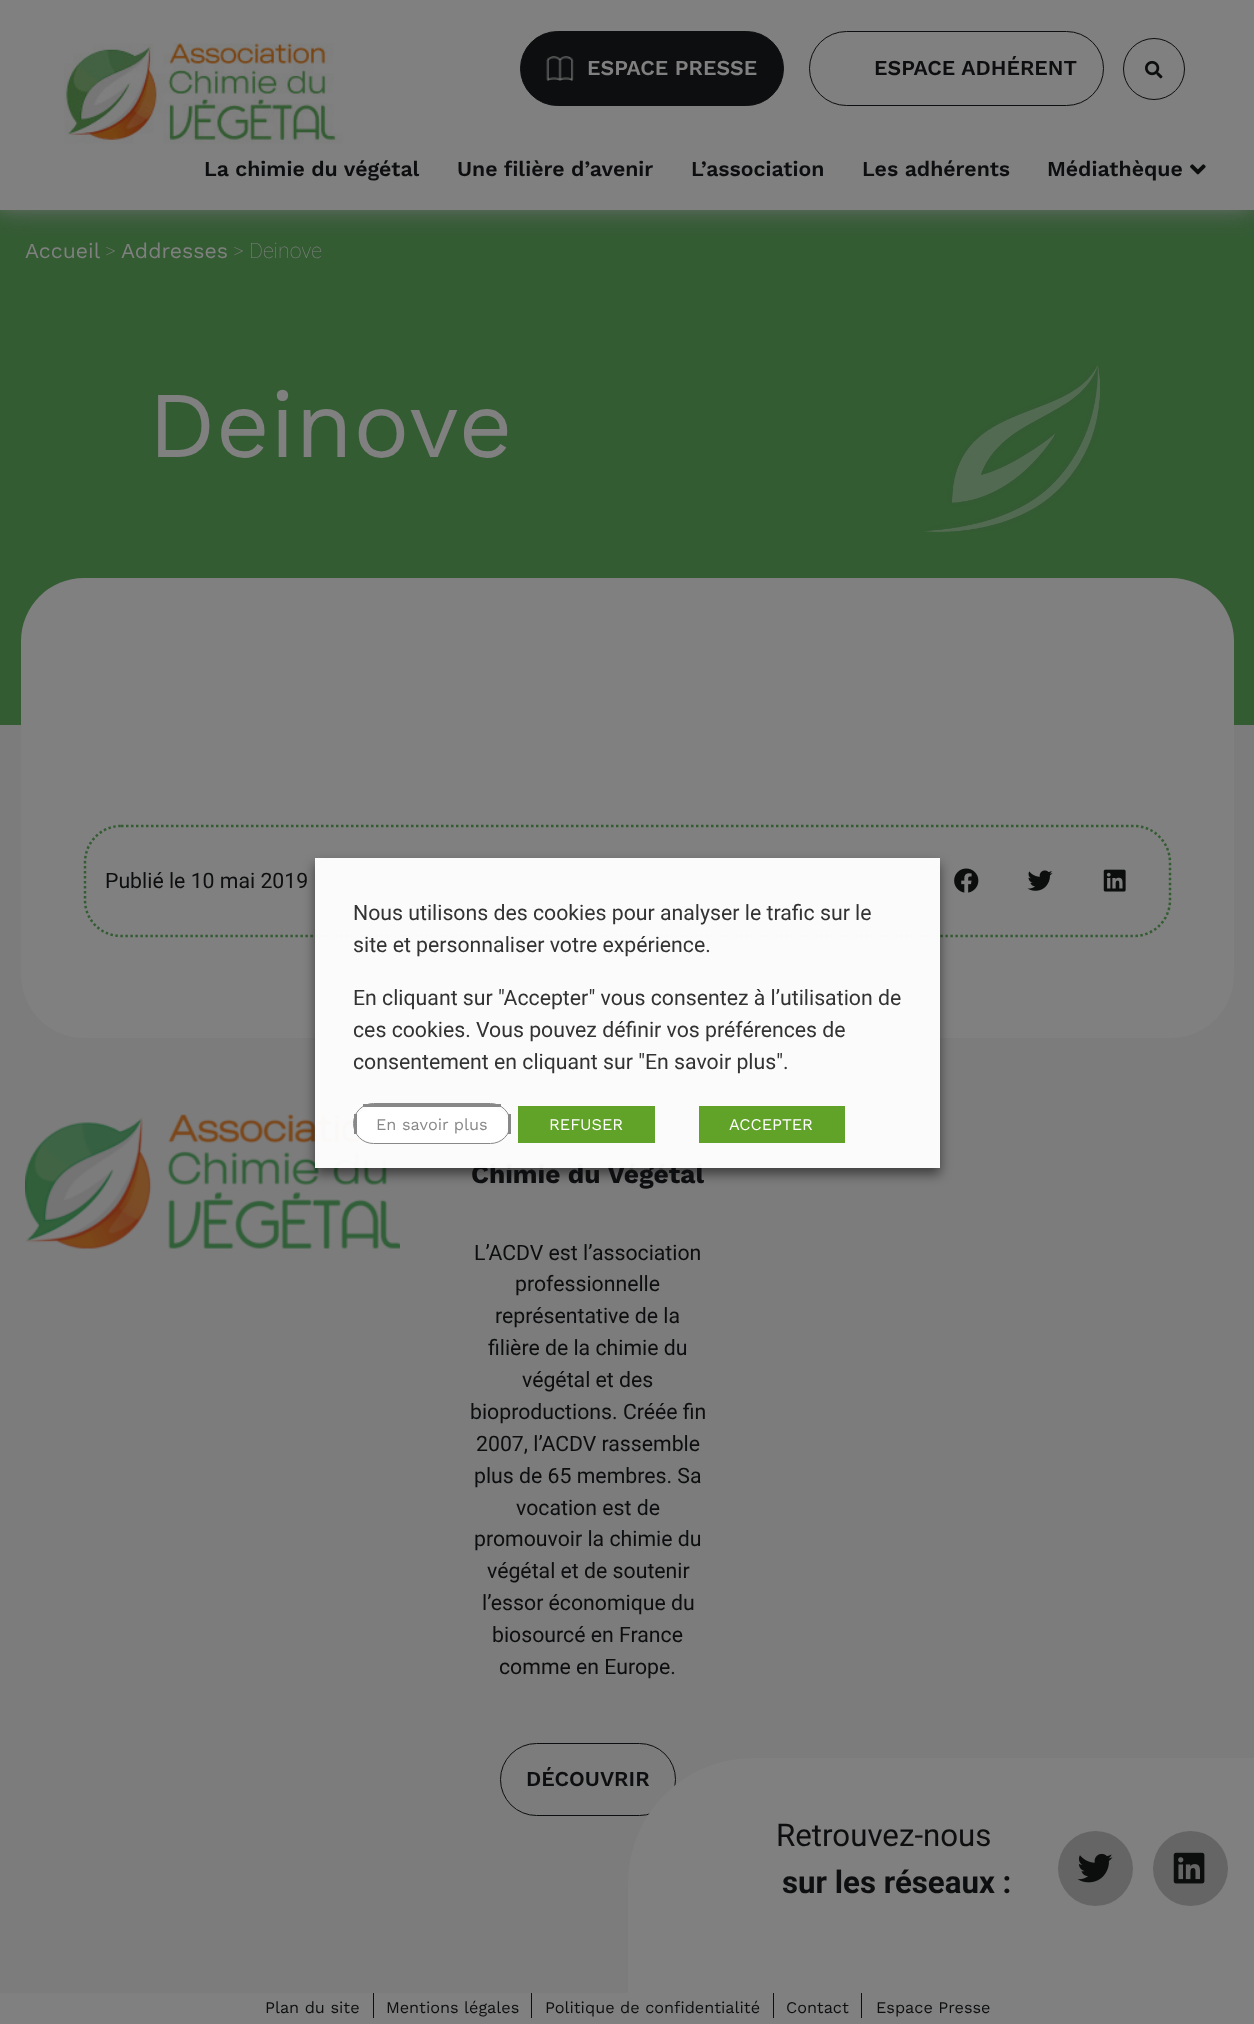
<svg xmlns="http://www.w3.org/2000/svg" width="1254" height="2024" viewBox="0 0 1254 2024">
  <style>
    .t1 { font: 600 21.25px Work Sans; fill: #808080; }
    .t2 { font: 600 21.25px Work Sans; fill: #0d0e0f; }
    .t3 { font: 21.25px Work Sans; fill: #808080; }
    .t4 { font: 100 21.25px Roboto; fill: #808080; }
    .t5 { font: 94px Work Sans; fill: #808080; }
    .t6 { font: 21.25px Roboto; fill: #0d0e0f; }
    .t7 { font: bold 26.25px Work Sans; fill: #0d0e0f; }
    .t8 { font: 21.25px Roboto; fill: #333; }
    .t9 { font: 16.25px Work Sans; fill: #898888; }
    .t10 { font: 16.25px Work Sans; fill: #fff; }
    .t11 { font: 31.25px Roboto; fill: #0d0e0f; }
    .t12 { font: bold 31.25px Roboto; fill: #0d0e0f; }
    .t13 { font: 16.25px Work Sans; fill: #0d0e0f; }
  </style>
  <defs>
    <clipPath id="clip1"><rect x="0" y="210" width="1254" height="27"/></clipPath>
    <clipPath id="clip2"><rect x="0" y="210" width="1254" height="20"/></clipPath>
    <clipPath id="clip3"><path d="M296 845H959V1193H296ZM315 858H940V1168H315Z" clip-rule="evenodd"/></clipPath>
  </defs>
  <rect width="100%" height="100%" fill="#808080"/>
  <rect x="0" y="210" width="1254" height="515" fill="#345c33"/>
  <g clip-path="url(#clip1)">
    <rect x="6" y="-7" width="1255" height="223" fill="#57576066" filter="blur(12.5px)"/>
  </g>
  <g clip-path="url(#clip2)">
    <rect x="-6" y="-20" width="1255" height="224" fill="#808080" filter="blur(12.5px)"/>
  </g>
  <image x="64" y="43" width="279" height="101" href="images/1.png"/>
  <rect x="520.5" y="31.5" width="263" height="74" rx="37" fill="#0d0e0f" stroke="#0d0e0f"/>
  <image x="546" y="56" width="28" height="25" href="images/2.png"/>
  <text x="587" y="75" class="t1">ESPACE PRESSE</text>
  <rect x="809.5" y="31.5" width="294" height="74" rx="37" fill="none" stroke="#0d0e0f"/>
  <text x="874" y="75" class="t2">ESPACE ADHÉRENT</text>
  <circle cx="1154" cy="69" r="30.5" fill="none" stroke="#0d0e0f"/>
  <image x="1145" y="60" width="18" height="19" href="images/3.png"/>
  <text x="204" y="176" class="t2">La chimie du végétal</text>
  <text x="457" y="176" class="t2">Une filière d’avenir</text>
  <text x="691" y="176" class="t2">L’association</text>
  <text x="862" y="176" class="t2">Les adhérents</text>
  <text x="1047" y="176" class="t2">Médiathèque</text>
  <image x="1190" y="164" width="16" height="11" href="images/4.png"/>
  <text x="25" y="258" class="t3">Accueil</text>
  <text x="105" y="258" class="t4">&gt;</text>
  <text x="121" y="258" class="t3">Addresses</text>
  <text x="233" y="258" class="t4">&gt; Deinove</text>
  <text x="148" y="457" class="t5">Deinove</text>
  <image x="924" y="365" width="176" height="167" href="images/5.png"/>
  <rect x="0" y="725" width="1254" height="1268" fill="#7c7c7c"/>
  <rect x="21" y="578" width="1213" height="460" rx="63" fill="#808080"/>
  <path d="M121 826H1134C1154 826 1170 842.5 1170 862.5V900C1170 920 1154 936 1134 936H121C101 936 85 920 85 900V862.5C85 842.5 101 826 121 826Z" fill="none" stroke="#345c33" stroke-width="2.5" stroke-dasharray="2.5 2.5"/>
  <text x="105" y="888" class="t6">Publié le 10 mai 2019</text>
  <image x="954" y="868" width="25" height="25" href="images/6.png"/>
  <image x="1027" y="870" width="26" height="21" href="images/7.png"/>
  <image x="1103" y="869" width="23" height="23" href="images/8.png"/>
  <image x="25" y="1114" width="375" height="135" href="images/9.png"/>
  <g clip-path="url(#clip3)">
    <rect x="315" y="864" width="625" height="310" fill="#00000080" filter="blur(6px)"/>
  </g>
  <text x="471" y="1183" class="t7">Chimie du Végétal</text>
  <rect x="315" y="858" width="625" height="310" fill="#fffffff7"/>
  <text x="353" y="920" class="t8">Nous utilisons des cookies pour analyser le trafic sur le</text>
  <text x="353" y="952" class="t8">site et personnaliser votre expérience.</text>
  <text x="353" y="1005" class="t8">En cliquant sur "Accepter" vous consentez à l’utilisation de</text>
  <text x="353" y="1037" class="t8">ces cookies. Vous pouvez définir vos préférences de</text>
  <text x="353" y="1069" class="t8">consentement en cliquant sur "En savoir plus".</text>
  <path d="M373 1107H491C500 1107 508 1114 508 1123C508 1134 500 1143 491 1143H373C364 1143 356 1134 356 1123C356 1114 364 1107 373 1107Z" fill="#fff"/>
  <rect x="353.5" y="1103.5" width="157" height="40" rx="20" fill="none" stroke="#898888"/>
  <rect x="363" y="1104" width="138" height="3" fill="#898888"/>
  <rect x="508" y="1114" width="3" height="20" fill="#898888"/>
  <rect x="354" y="1114" width="3" height="20" fill="#898888"/>
  <text x="376" y="1130" class="t9">En savoir plus</text>
  <rect x="518" y="1106" width="137" height="37" fill="#61a229"/>
  <text x="549" y="1130" class="t10">REFUSER</text>
  <rect x="699" y="1106" width="146" height="37" fill="#61a229"/>
  <text x="729" y="1130" class="t10">ACCEPTER</text>
  <text x="474" y="1260" class="t6">L’ACDV est l’association</text>
  <text x="515" y="1291" class="t6">professionnelle</text>
  <text x="495" y="1323" class="t6">représentative de la</text>
  <text x="488" y="1355" class="t6">filière de la chimie du</text>
  <text x="522" y="1387" class="t6">végétal et des</text>
  <text x="470" y="1419" class="t6">bioproductions. Créée fin</text>
  <text x="476" y="1451" class="t6">2007, l’ACDV rassemble</text>
  <text x="474" y="1483" class="t6">plus de 65 membres. Sa</text>
  <text x="516" y="1515" class="t6">vocation est de</text>
  <text x="474" y="1546" class="t6">promouvoir la chimie du</text>
  <text x="487" y="1578" class="t6">végétal et de soutenir</text>
  <text x="482" y="1610" class="t6">l’essor économique du</text>
  <text x="492" y="1642" class="t6">biosourcé en France</text>
  <text x="499" y="1674" class="t6">comme en Europe.</text>
  <rect x="500.5" y="1743.5" width="175" height="72" rx="36" fill="none" stroke="#0d0e0f"/>
  <text x="526" y="1786" class="t2">DÉCOUVRIR</text>
  <path d="M753 1758H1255V1993H628V1883C628 1814 684 1758 753 1758Z" fill="#808080"/>
  <text x="776" y="1846" class="t11">Retrouvez-nous</text>
  <text x="782" y="1893" class="t12">sur les réseaux :</text>
  <circle cx="1095.5" cy="1868.5" r="37.5" fill="#656565"/>
  <image x="1077" y="1853" width="36" height="30" href="images/10.png"/>
  <circle cx="1190.5" cy="1868.5" r="37.5" fill="#656565"/>
  <image x="1173" y="1852" width="32" height="32" href="images/11.png"/>
  <rect x="373" y="1993" width="1" height="25" fill="#0d0e0f"/>
  <text x="265" y="2013" class="t13">Plan du site</text>
  <rect x="531" y="1993" width="1" height="25" fill="#0d0e0f"/>
  <text x="386" y="2013" class="t13">Mentions légales</text>
  <rect x="773" y="1993" width="1" height="25" fill="#0d0e0f"/>
  <text x="545" y="2013" class="t13">Politique de confidentialité</text>
  <rect x="861" y="1993" width="1" height="25" fill="#0d0e0f"/>
  <text x="786" y="2013" class="t13">Contact</text>
  <text x="876" y="2013" class="t13">Espace Presse</text>
</svg>
